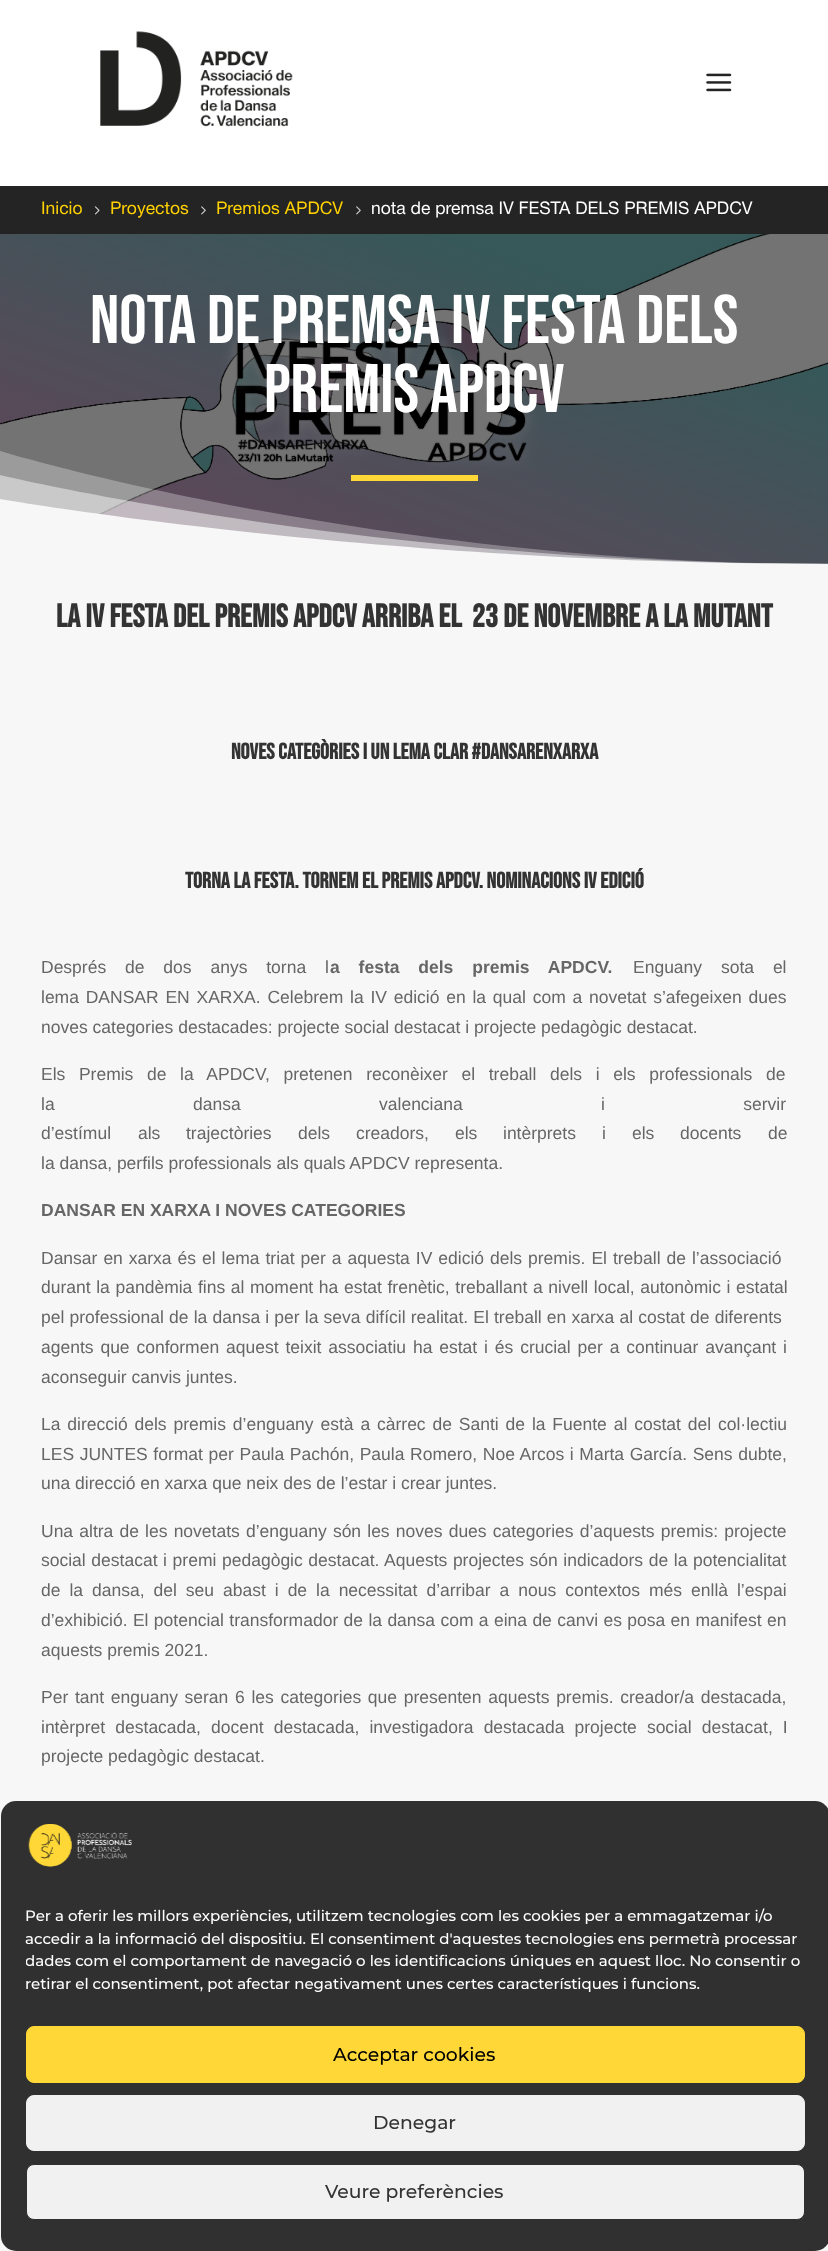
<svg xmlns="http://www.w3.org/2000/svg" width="828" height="2251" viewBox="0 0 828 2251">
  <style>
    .t1 { font: 17.5px Helvetica Neue; fill: #ffd100; }
    .t2 { font: 17.5px Helvetica Neue; fill: #fff; }
    .t3 { font: 68.75px Bebas Neue; fill: #fff; }
    .t4 { font: bold 32.5px Bebas Neue; fill: #333; }
    .t5 { font: bold 22.5px Bebas Neue; fill: #333; }
    .t6 { font: 17.5px Liberation Sans; fill: #666; }
    .t7 { font: bold 17.5px Liberation Sans; fill: #666; }
    .t8 { font: 100 15px Montserrat; fill: #fff; }
    .t9 { font: 100 18.75px Montserrat; fill: #000; }
    .t10 { font: 100 18.75px Montserrat; fill: #333; }
  </style>
  <defs>
    <clipPath id="clip1"><rect x="26" y="1905" width="779" height="96"/></clipPath>
  </defs>
  <rect width="100%" height="100%" fill="#fff"/>
  <image x="100" y="31" width="193" height="96" href="images/1.png"/>
  <image x="706" y="73" width="26" height="19" href="images/2.png"/>
  <rect x="0" y="186" width="828" height="48" fill="#242424"/>
  <text x="41" y="214" class="t1">Inicio</text>
  <image x="94" y="206" width="6" height="9" href="images/3.png"/>
  <text x="110" y="214" class="t1">Proyectos</text>
  <image x="201" y="206" width="5" height="9" href="images/4.png"/>
  <text x="216" y="214" class="t1">Premios APDCV</text>
  <image x="356" y="206" width="5" height="9" href="images/4.png"/>
  <text x="371" y="214" class="t2">nota de premsa IV FESTA DELS PREMIS APDCV</text>
  <image x="0" y="234" width="828" height="330" href="images/5.png"/>
  <text x="90" y="343" class="t3">nota de premsa IV FESTA DELS</text>
  <text x="264" y="412" class="t3">PREMIS APDCV</text>
  <path d="M0 564H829C371 564 0 451 0 451Z" fill="#f7f7f74d"/>
  <path d="M0 564H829C371 564 0 475 0 475Z" fill="#f7f7f780"/>
  <rect x="351" y="475" width="127" height="6" fill="#ffd838"/>
  <path d="M0 564H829C371 564 0 499 0 499Z" fill="#f7f7f7"/>
  <rect x="0" y="564" width="828" height="1687" fill="#f7f7f7"/>
  <text x="56" y="627" class="t4">LA IV FESTA DEL PREMIS APDCV ARRIBA EL</text>
  <text x="472" y="627" class="t4">23 DE NOVEMBRE A LA MUTANT</text>
  <text x="231" y="759" class="t5">NOVES CATEGÒRIES I UN LEMA CLAR #DANSARENXARXA</text>
  <text x="185" y="888" class="t5">TORNA LA FESTA. TORNEM EL PREMIS APDCV. NOMINACIONS IV EDICIÓ</text>
  <text x="41" y="973" word-spacing="14" class="t6">Després de dos anys torna l</text>
  <text x="330" y="973" word-spacing="14" class="t7">a festa dels premis APDCV.</text>
  <text x="633" y="973" word-spacing="14" class="t6">Enguany sota el</text>
  <text x="41" y="1003" word-spacing="1.9" class="t6">lema DANSAR EN XARXA. Celebrem la IV edició en la qual com a novetat s’afegeixen dues</text>
  <text x="41" y="1033" class="t6">noves categories destacades: projecte social destacat i projecte pedagògic destacat.</text>
  <text x="41" y="1080" word-spacing="8.75" class="t6">Els Premis de la APDCV, pretenen reconèixer el treball dels i els professionals de</text>
  <text x="41" y="1110" word-spacing="133.5" class="t6">la dansa valenciana i servir</text>
  <text x="41" y="1139" class="t6">d’estímul</text>
  <text x="138" y="1139" class="t6">als</text>
  <text x="186" y="1139" class="t6">trajectòries</text>
  <text x="298" y="1139" class="t6">dels</text>
  <text x="356" y="1139" class="t6">creadors,</text>
  <text x="455" y="1139" class="t6">els</text>
  <text x="503" y="1139" class="t6">intèrprets</text>
  <text x="602" y="1139" class="t6">i</text>
  <text x="632" y="1139" class="t6">els</text>
  <text x="680" y="1139" class="t6">docents</text>
  <text x="768" y="1139" class="t6">de</text>
  <text x="41" y="1169" class="t6">la dansa, perfils professionals als quals APDCV representa.</text>
  <text x="41" y="1216" class="t7">DANSAR EN XARXA I NOVES CATEGORIES</text>
  <text x="41" y="1264" word-spacing="1.1" class="t6">Dansar en xarxa és el lema triat per a aquesta IV edició dels premis. El treball de l’associació</text>
  <text x="41" y="1293" word-spacing="0.75" class="t6">durant la pandèmia fins al moment ha estat frenètic, treballant a nivell local, autonòmic i estatal</text>
  <text x="41" y="1323" word-spacing="0.3" class="t6">pel professional de la dansa i per la seva difícil realitat. El treball en xarxa al costat de diferents</text>
  <text x="41" y="1353" word-spacing="2" class="t6">agents que conformen aquest teixit associatiu ha estat i és crucial per a continuar avançant i</text>
  <text x="41" y="1383" class="t6">aconseguir canvis juntes.</text>
  <text x="41" y="1430" word-spacing="2" class="t6">La direcció dels premis d’enguany està a càrrec de Santi de la Fuente al costat del col·lectiu</text>
  <text x="41" y="1460" word-spacing="0.75" class="t6">LES JUNTES format per Paula Pachón, Paula Romero, Noe Arcos i Marta García. Sens dubte,</text>
  <text x="41" y="1489" class="t6">una direcció en xarxa que neix des de l’estar i crear juntes.</text>
  <text x="41" y="1537" word-spacing="1.3" class="t6">Una altra de les novetats d’enguany són les noves dues categories d’aquests premis: projecte</text>
  <text x="41" y="1566" word-spacing="0.75" class="t6">social destacat i premi pedagògic destacat. Aquests projectes són indicadors de la potencialitat</text>
  <text x="41" y="1596" word-spacing="4.1" class="t6">de la dansa, del seu abast i de la necessitat d’arribar a nous contextos més enllà l’espai</text>
  <text x="41" y="1626" word-spacing="0.5" class="t6">d’exhibició. El potencial transformador de la dansa com a eina de canvi es posa en manifest en</text>
  <text x="41" y="1656" class="t6">aquests premis 2021.</text>
  <text x="41" y="1703" word-spacing="1.8" class="t6">Per tant enguany seran 6 les categories que presenten aquests premis. creador/a destacada,</text>
  <text x="41" y="1733" word-spacing="5.25" class="t6">intèrpret destacada, docent destacada, investigadora destacada projecte social destacat, I</text>
  <text x="41" y="1762" class="t6">projecte pedagògic destacat.</text>
  <rect x="1" y="1801" width="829" height="450" rx="15" fill="#303030"/>
  <image x="28" y="1823" width="104" height="44" href="images/6.png"/>
  <text x="25" y="1921" class="t8">Per a oferir les millors experiències, utilitzem tecnologies com les cookies per a emmagatzemar i/o</text>
  <text x="25" y="1944" class="t8">accedir a la informació del dispositiu. El consentiment d'aquestes tecnologies ens permetrà processar</text>
  <g clip-path="url(#clip1)">
    <text x="25" y="1966" class="t8">dades com el comportament de navegació o les identificacions úniques en aquest lloc. No consentir o</text>
  </g>
  <text x="25" y="1989" class="t8">retirar el consentiment, pot afectar negativament unes certes característiques i funcions.</text>
  <rect x="26.5" y="2026.5" width="778" height="56" rx="7.5" fill="#ffd838" stroke="#ffd838"/>
  <text x="333" y="2061" class="t9">Acceptar cookies</text>
  <rect x="26.5" y="2095.5" width="778" height="55" rx="7.5" fill="#f1f1f1" stroke="#f1f1f1"/>
  <text x="373" y="2129" class="t10">Denegar</text>
  <rect x="26.5" y="2164.5" width="778" height="55" rx="7.5" fill="#f1f1f1" stroke="#303030"/>
  <text x="325" y="2198" class="t10">Veure preferències</text>
</svg>
